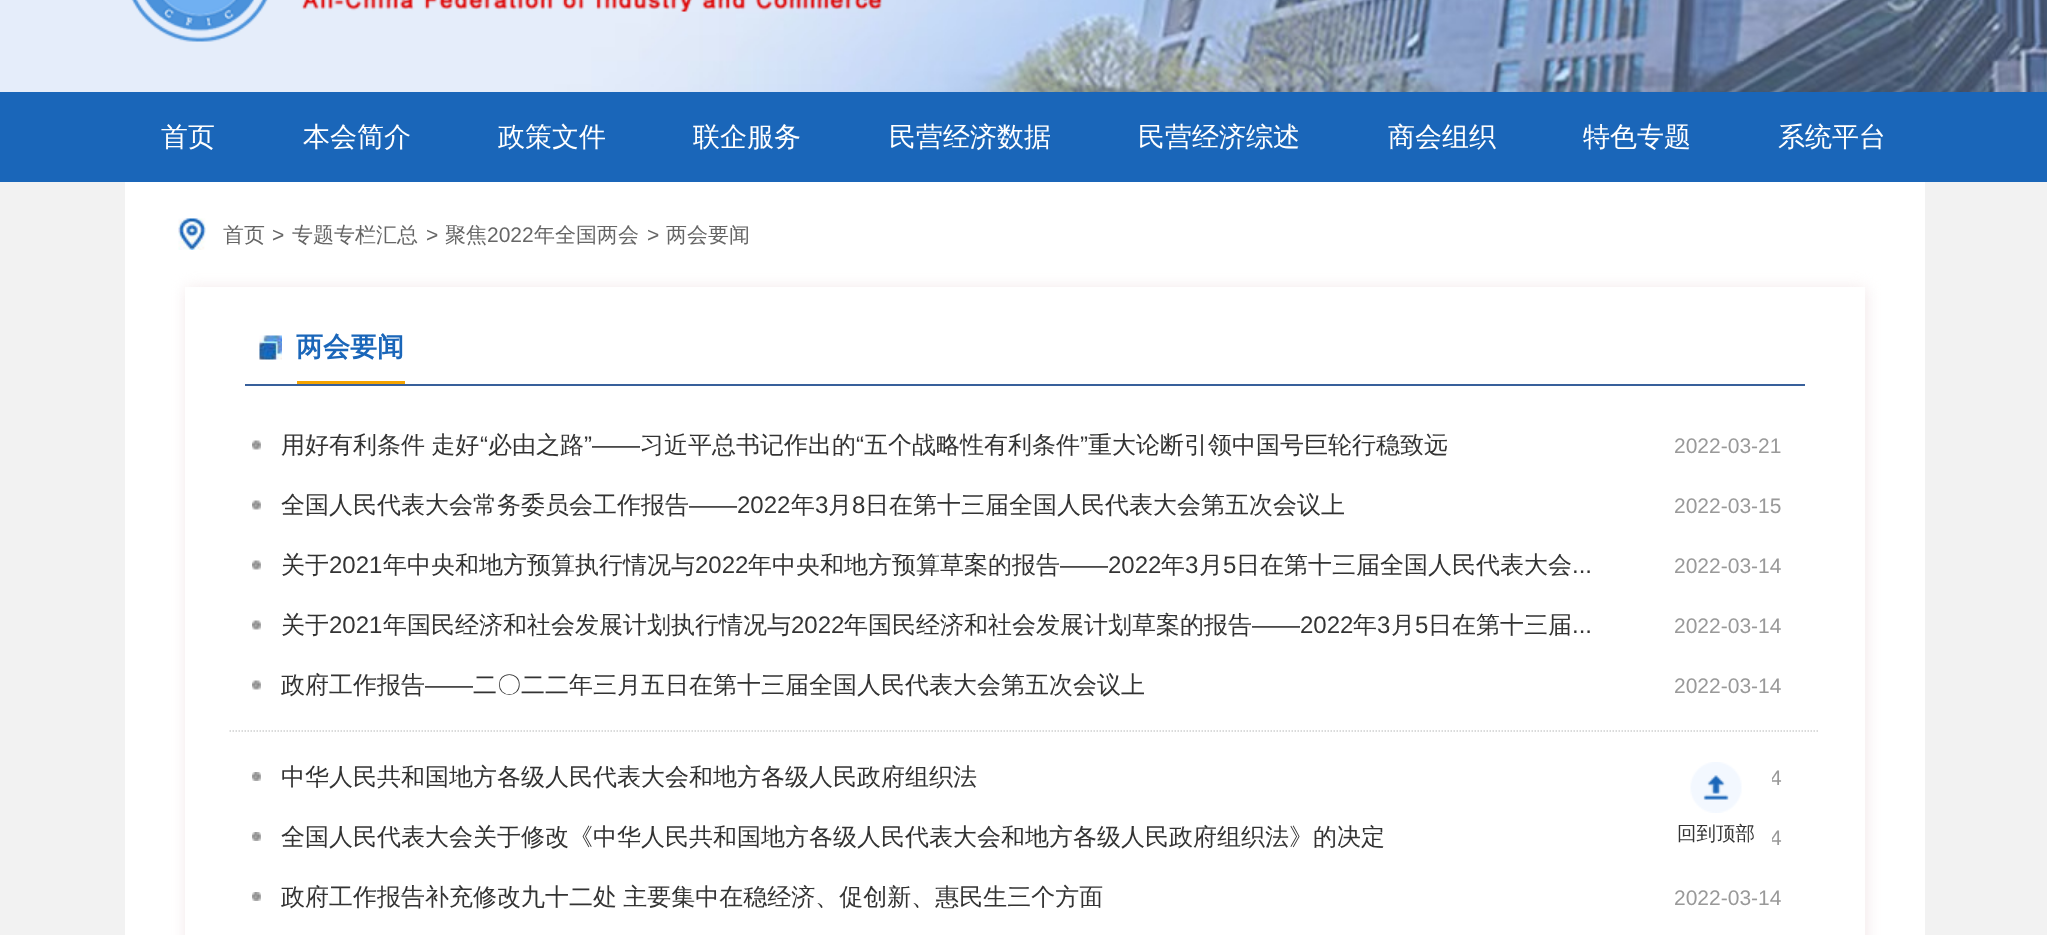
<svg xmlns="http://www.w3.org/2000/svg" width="2047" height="935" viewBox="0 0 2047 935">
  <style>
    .t1 { font: 500 27px WenQuanYi Zen Hei; fill: #fff; }
    .t2 { font: 500 21px WenQuanYi Zen Hei; fill: #666; }
    .t3 { font: 21px Liberation Sans; fill: #666; }
    .t4 { font: bold 27px WenQuanYi Zen Hei; fill: #1a66b9; }
    .t5 { font: 500 24px WenQuanYi Zen Hei; fill: #333; }
    .t6 { font: 24px Liberation Sans; fill: #333; }
    .t7 { font: 21px Liberation Sans; fill: #999; }
    .t8 { font: 500 19.5px WenQuanYi Zen Hei; fill: #333; }
  </style>
  <defs>
    <clipPath id="clip1"><path d="M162 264H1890V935H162ZM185 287H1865V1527H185Z" clip-rule="evenodd"/></clipPath>
  </defs>
  <rect width="100%" height="100%" fill="#f2f2f2"/>
  <image x="0" y="0" width="2047" height="92" href="images/1.png"/>
  <image x="131" y="0" width="751" height="42" href="images/2.png"/>
  <rect x="0" y="92" width="2047" height="90" fill="#1a66b9"/>
  <text x="161" y="146" class="t1">首页</text>
  <text x="303" y="146" class="t1">本会简介</text>
  <text x="498" y="146" class="t1">政策文件</text>
  <text x="693" y="146" class="t1">联企服务</text>
  <text x="889" y="146" class="t1">民营经济数据</text>
  <text x="1138" y="146" class="t1">民营经济综述</text>
  <text x="1388" y="146" class="t1">商会组织</text>
  <text x="1583" y="146" class="t1">特色专题</text>
  <text x="1778" y="146" class="t1">系统平台</text>
  <rect x="125" y="182" width="1800" height="753" fill="#fff"/>
  <image x="178" y="218" width="28" height="32" href="images/3.png"/>
  <text x="223" y="242" class="t2">首页</text>
  <text x="272" y="242" class="t3">&gt;</text>
  <text x="292" y="242" class="t2">专题专栏汇总</text>
  <text x="426" y="242" class="t3">&gt;</text>
  <text x="445" y="242" class="t2">聚焦</text>
  <text x="487" y="242" class="t3">2022</text>
  <text x="534" y="242" class="t2">年全国两会</text>
  <text x="647" y="242" class="t3">&gt;</text>
  <text x="666" y="242" class="t2">两会要闻</text>
  <g clip-path="url(#clip1)">
    <rect x="186" y="288" width="1680" height="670" fill="#f2e7e8" filter="blur(7.5px)"/>
  </g>
  <rect x="245" y="384" width="1560" height="2" fill="#38609b"/>
  <image x="259" y="335" width="23" height="25" href="images/4.png"/>
  <rect x="297" y="381" width="108" height="3" fill="#f4a300"/>
  <text x="296" y="356" class="t4">两会要闻</text>
  <path d="M229.5 731H1819.5" fill="none" stroke="#cecfd0" stroke-width="1.5" stroke-dasharray="1.5 1.5"/>
  <image x="252" y="440" width="9" height="10" href="images/5.png"/>
  <text x="281" y="453" word-spacing="-1" class="t5">用好有利条件 走好</text>
  <text x="480" y="453" class="t6">“</text>
  <text x="488" y="453" class="t5">必由之路</text>
  <text x="584" y="453" class="t6">”——</text>
  <text x="640" y="453" class="t5">习近平总书记作出的</text>
  <text x="856" y="453" class="t6">“</text>
  <text x="864" y="453" class="t5">五个战略性有利条件</text>
  <text x="1080" y="453" class="t6">”</text>
  <text x="1088" y="453" class="t5">重大论断引领中国号巨轮行稳致远</text>
  <text x="1674" y="453" class="t7">2022-03-21</text>
  <image x="252" y="500" width="9" height="10" href="images/5.png"/>
  <text x="281" y="513" class="t5">全国人民代表大会常务委员会工作报告</text>
  <text x="689" y="513" class="t6">——2022</text>
  <text x="791" y="513" class="t5">年</text>
  <text x="815" y="513" class="t6">3</text>
  <text x="828" y="513" class="t5">月</text>
  <text x="852" y="513" class="t6">8</text>
  <text x="865" y="513" class="t5">日在第十三届全国人民代表大会第五次会议上</text>
  <text x="1674" y="513" class="t7">2022-03-15</text>
  <image x="252" y="560" width="9" height="10" href="images/5.png"/>
  <text x="281" y="573" class="t5">关于</text>
  <text x="329" y="573" class="t6">2021</text>
  <text x="383" y="573" class="t5">年中央和地方预算执行情况与</text>
  <text x="695" y="573" class="t6">2022</text>
  <text x="748" y="573" class="t5">年中央和地方预算草案的报告</text>
  <text x="1060" y="573" class="t6">——2022</text>
  <text x="1161" y="573" class="t5">年</text>
  <text x="1185" y="573" class="t6">3</text>
  <text x="1199" y="573" class="t5">月</text>
  <text x="1223" y="573" class="t6">5</text>
  <text x="1236" y="573" class="t5">日在第十三届全国人民代表大会</text>
  <text x="1674" y="573" class="t7">2022-03-14</text>
  <text x="1572" y="573" class="t6">...</text>
  <image x="252" y="620" width="9" height="10" href="images/5.png"/>
  <text x="281" y="633" class="t5">关于</text>
  <text x="329" y="633" class="t6">2021</text>
  <text x="383" y="633" class="t5">年国民经济和社会发展计划执行情况与</text>
  <text x="791" y="633" class="t6">2022</text>
  <text x="844" y="633" class="t5">年国民经济和社会发展计划草案的报告</text>
  <text x="1252" y="633" class="t6">——2022</text>
  <text x="1353" y="633" class="t5">年</text>
  <text x="1377" y="633" class="t6">3</text>
  <text x="1391" y="633" class="t5">月</text>
  <text x="1415" y="633" class="t6">5</text>
  <text x="1428" y="633" class="t5">日在第十三届</text>
  <text x="1674" y="633" class="t7">2022-03-14</text>
  <text x="1572" y="633" class="t6">...</text>
  <image x="252" y="680" width="9" height="10" href="images/5.png"/>
  <text x="281" y="693" class="t5">政府工作报告</text>
  <text x="425" y="693" class="t6">——</text>
  <text x="473" y="693" class="t5">二〇二二年三月五日在第十三届全国人民代表大会第五次会议上</text>
  <text x="1674" y="693" class="t7">2022-03-14</text>
  <image x="252" y="772" width="9" height="9" href="images/6.png"/>
  <text x="281" y="785" class="t5">中华人民共和国地方各级人民代表大会和地方各级人民政府组织法</text>
  <text x="1770" y="785" class="t7">4</text>
  <image x="252" y="832" width="9" height="9" href="images/6.png"/>
  <text x="281" y="845" class="t5">全国人民代表大会关于修改《中华人民共和国地方各级人民代表大会和地方各级人民政府组织法》的决定</text>
  <text x="1770" y="845" class="t7">4</text>
  <image x="252" y="892" width="9" height="9" href="images/6.png"/>
  <text x="281" y="905" word-spacing="-1" class="t5">政府工作报告补充修改九十二处 主要集中在稳经济、促创新、惠民生三个方面</text>
  <text x="1674" y="905" class="t7">2022-03-14</text>
  <rect x="1770" y="777" width="2" height="65" fill="#fff"/>
  <image x="1690" y="762" width="52" height="51" href="images/7.png"/>
  <text x="1677" y="840" class="t8">回到顶部</text>
</svg>
